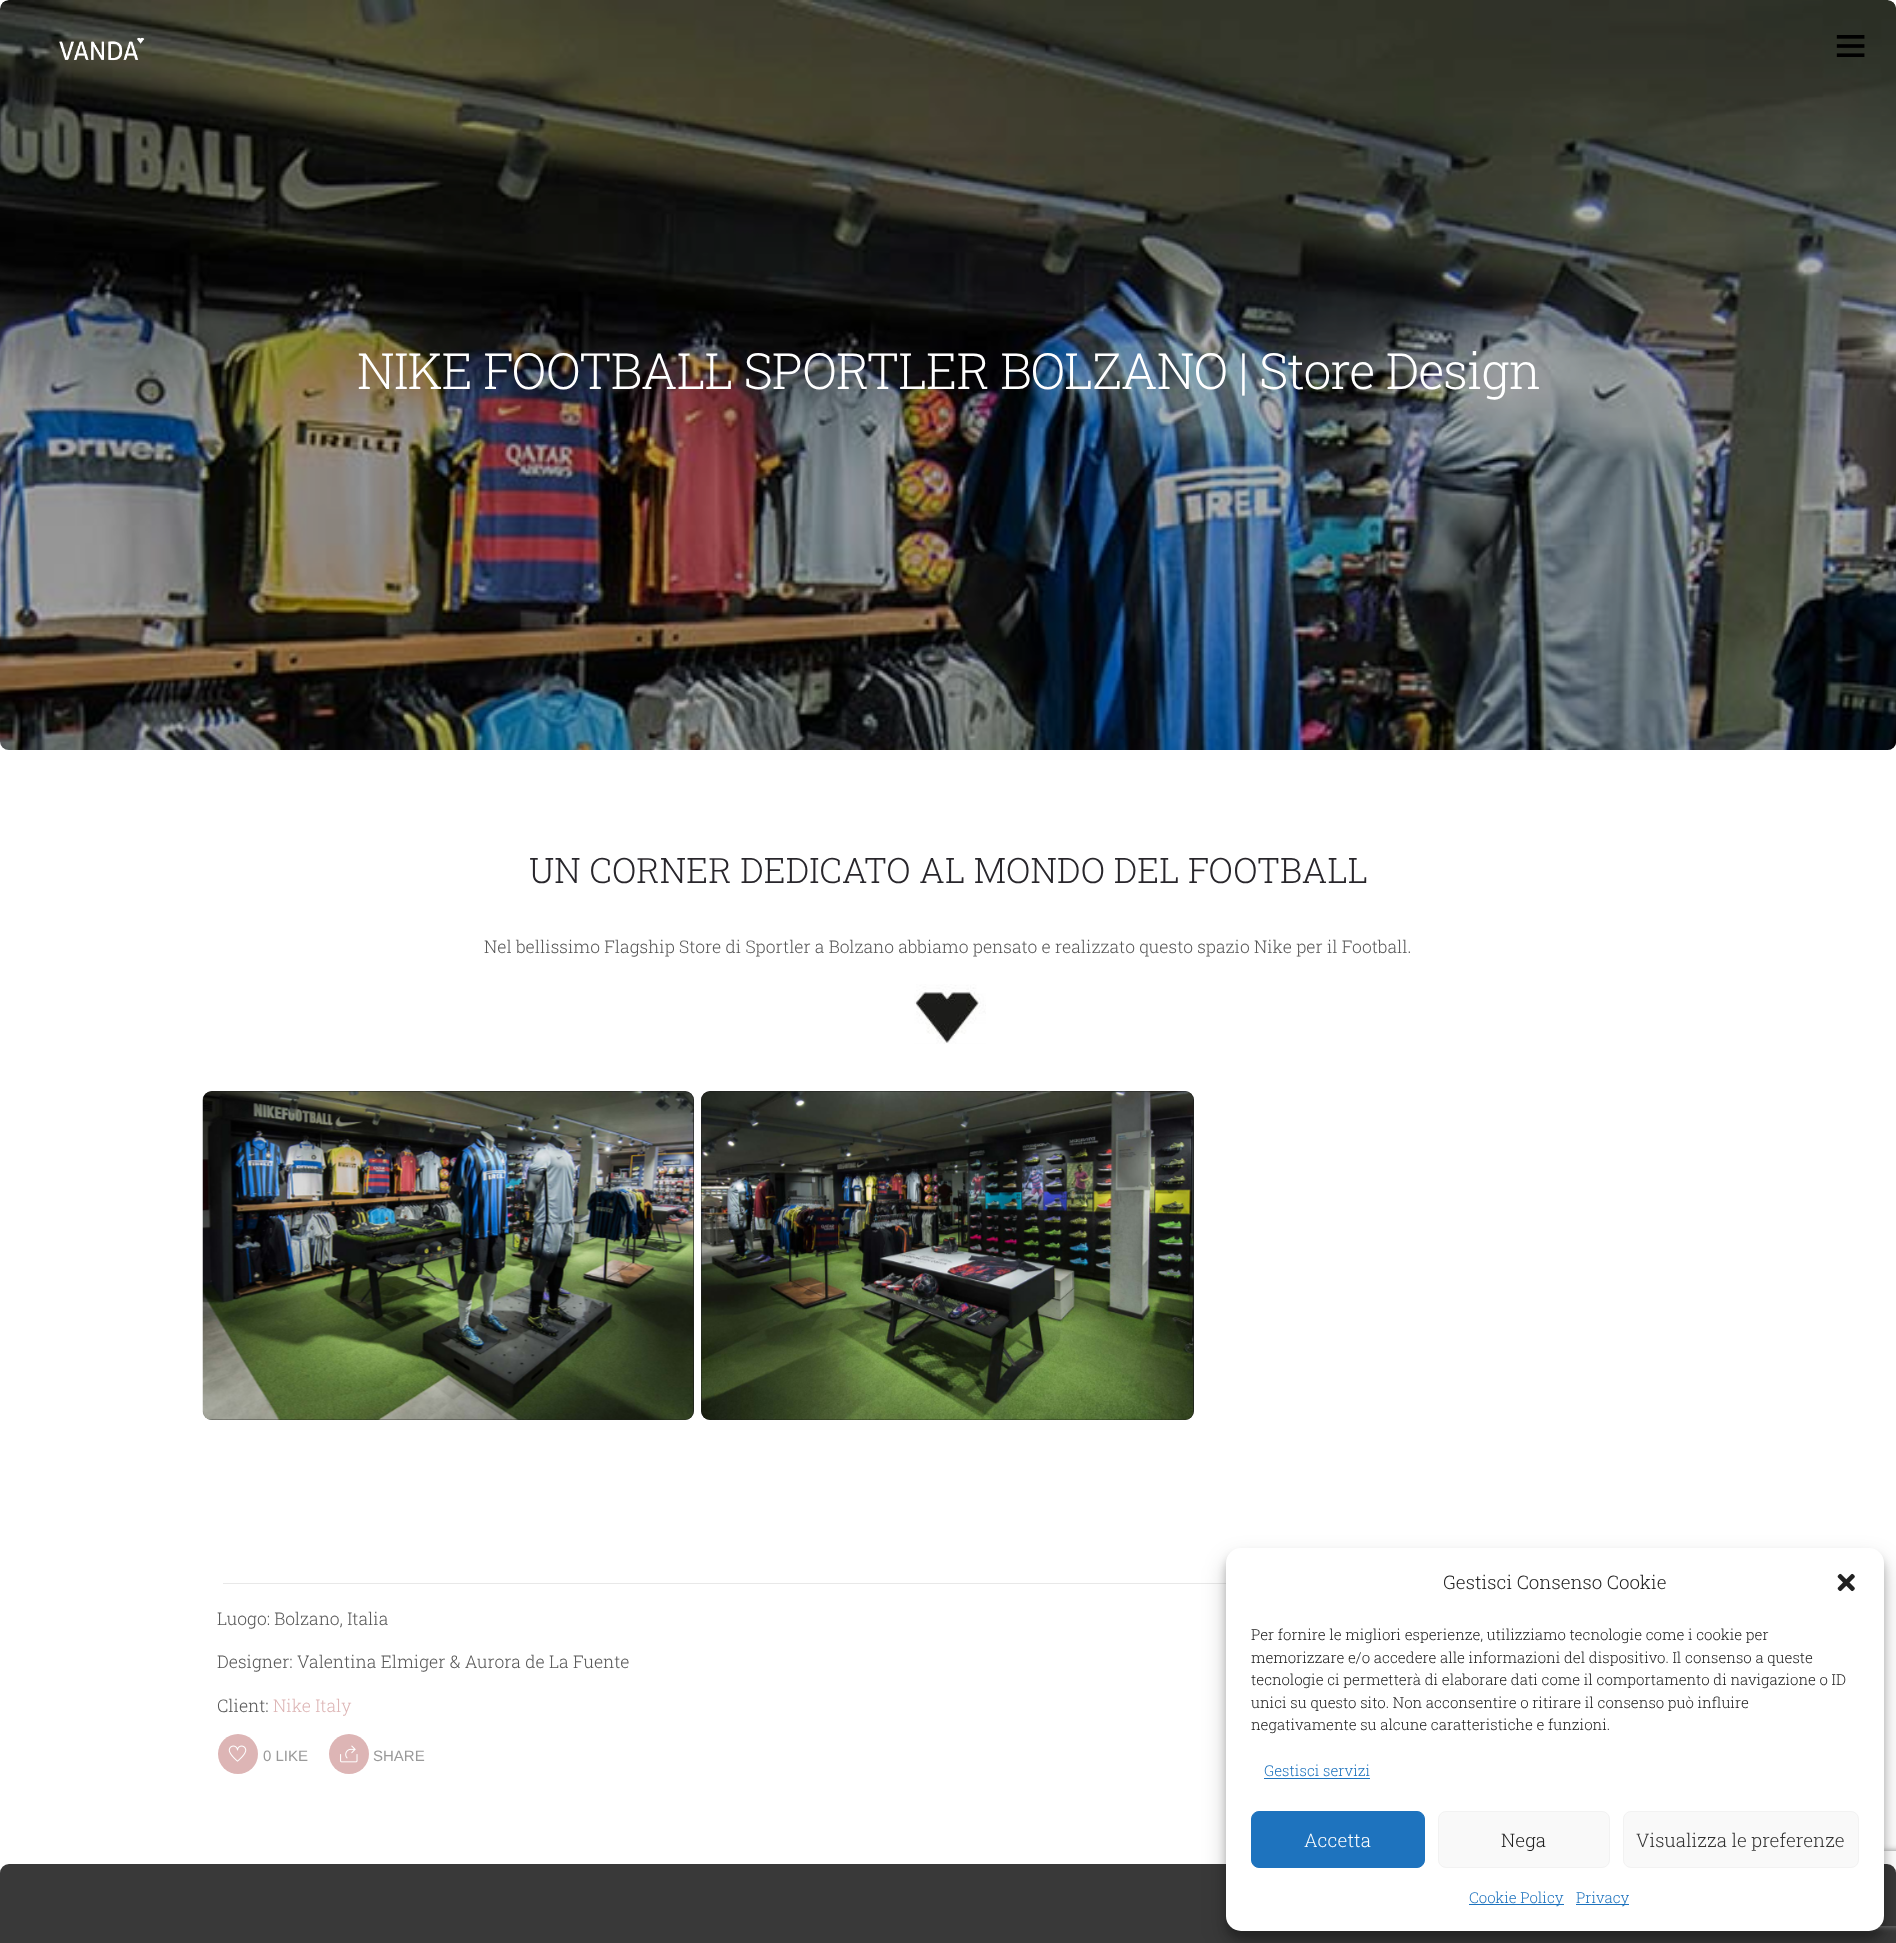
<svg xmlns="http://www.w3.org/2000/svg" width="1896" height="1943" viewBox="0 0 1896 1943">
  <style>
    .t1 { font: 300 50px Roboto Slab; letter-spacing: -1px; fill: #fff; }
    .t2 { font: 300 35px Roboto Slab; fill: #28262b; }
    .t3 { font: 300 17.5px Roboto Slab; fill: #565656; }
    .t4 { font: 300 17.5px Roboto Slab; fill: #ddb5b5; }
    .t5 { font: 15px Liberation Sans; fill: #999; }
    .t6 { font: 300 18.75px Roboto Slab; fill: #222; }
    .t7 { font: 300 15px Roboto Slab; fill: #222; }
    .t8 { font: 300 15px Roboto Slab; fill: #1e73be; }
    .t9 { font: 300 18.75px Roboto Slab; fill: #fff; }
    .t10 { font: 300 18.75px Roboto Slab; fill: #333; }
  </style>
  <defs>
    <clipPath id="clip1"><path d="M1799 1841H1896V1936H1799ZM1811.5 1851H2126.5C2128 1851 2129 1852 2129 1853.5V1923.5C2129 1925 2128 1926 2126.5 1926H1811.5C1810 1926 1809 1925 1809 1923.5V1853.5C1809 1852 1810 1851 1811.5 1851Z" clip-rule="evenodd"/></clipPath>
  </defs>
  <rect width="100%" height="100%" fill="#fff"/>
  <image x="0" y="0" width="1896" height="750" href="images/3.png"/>
  <rect x="0" y="0" width="1896" height="750" rx="9" fill="#0000004d"/>
  <image x="59" y="37" width="86" height="24" href="images/1.png"/>
  <image x="1836" y="35" width="29" height="22" href="images/2.png"/>
  <text x="357" y="389" class="t1">NIKE FOOTBALL SPORTLER BOLZANO | Store Design</text>
  <text x="529" y="883" class="t2">UN CORNER DEDICATO AL MONDO DEL FOOTBALL</text>
  <text x="484" y="953" class="t3">Nel bellissimo Flagship Store di Sportler a Bolzano abbiamo pensato e realizzato questo spazio Nike per il Football.</text>
  <image x="914" y="984" width="72" height="60" href="images/4.png"/>
  <rect x="203" y="1091" width="491" height="329" rx="9" fill="#1d1d1d"/>
  <image x="202" y="1091" width="492" height="329" href="images/5.png"/>
  <rect x="701" y="1091" width="493" height="329" rx="9" fill="#1d1d1d"/>
  <image x="701" y="1091" width="493" height="329" href="images/6.png"/>
  <rect x="223" y="1583" width="1003" height="1" fill="#e8e8e8"/>
  <text x="217" y="1625" class="t3">Luogo: Bolzano, Italia</text>
  <text x="217" y="1668" class="t3">Designer: Valentina Elmiger &amp; Aurora de La Fuente</text>
  <text x="217" y="1712" class="t3">Client:</text>
  <text x="273" y="1712" class="t4">Nike Italy</text>
  <circle cx="238" cy="1754" r="20" fill="#ddb5b5"/>
  <image x="228" y="1745" width="19" height="17" href="images/7.png"/>
  <text x="263" y="1761" class="t5">0 LIKE</text>
  <circle cx="349" cy="1754" r="20" fill="#ddb5b5"/>
  <image x="340" y="1745" width="18" height="18" href="images/8.png"/>
  <text x="373" y="1761" class="t5">SHARE</text>
  <rect x="0" y="1864" width="1896" height="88" rx="9" fill="#393939"/>
  <rect x="1226" y="1555" width="658" height="384" rx="15" fill="#0000003b" filter="blur(4px)"/>
  <rect x="1226" y="1560" width="658" height="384" rx="15" fill="#00000030" filter="blur(12.5px)"/>
  <g clip-path="url(#clip1)">
    <rect x="1809" y="1851" width="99" height="75" rx="2.5" fill="#808080" filter="blur(3px)"/>
  </g>
  <rect x="1226" y="1548" width="658" height="383" rx="15" fill="#fff"/>
  <text x="1443" y="1589" class="t6">Gestisci Consenso Cookie</text>
  <image x="1837" y="1573" width="18" height="19" href="images/9.png"/>
  <text x="1251" y="1640" class="t7">Per fornire le migliori esperienze, utilizziamo tecnologie come i cookie per</text>
  <text x="1251" y="1663" class="t7">memorizzare e/o accedere alle informazioni del dispositivo. Il consenso a queste</text>
  <text x="1251" y="1685" class="t7">tecnologie ci permetterà di elaborare dati come il comportamento di navigazione o ID</text>
  <text x="1251" y="1708" class="t7">unici su questo sito. Non acconsentire o ritirare il consenso può influire</text>
  <text x="1251" y="1730" class="t7">negativamente su alcune caratteristiche e funzioni.</text>
  <text x="1264" y="1776" class="t8">Gestisci servizi</text>
  <rect x="1264" y="1778" width="106" height="1" fill="#1e73be"/>
  <rect x="1251.5" y="1811.5" width="173" height="56" rx="7.5" fill="#1e73be" stroke="#1e73be"/>
  <text x="1304" y="1847" class="t9">Accetta</text>
  <rect x="1438.5" y="1811.5" width="171" height="56" rx="7.5" fill="#f9f9f9" stroke="#f2f2f2"/>
  <text x="1501" y="1847" class="t6">Nega</text>
  <rect x="1623.5" y="1811.5" width="235" height="56" rx="7.5" fill="#f9f9f9" stroke="#f2f2f2"/>
  <text x="1636" y="1847" class="t10">Visualizza le preferenze</text>
  <rect x="1469" y="1904" width="95" height="1" fill="#1e73be"/>
  <text x="1469" y="1903" class="t8">Cookie Policy</text>
  <rect x="1576" y="1904" width="53" height="1" fill="#1e73be"/>
  <text x="1576" y="1903" class="t8">Privacy</text>
</svg>
